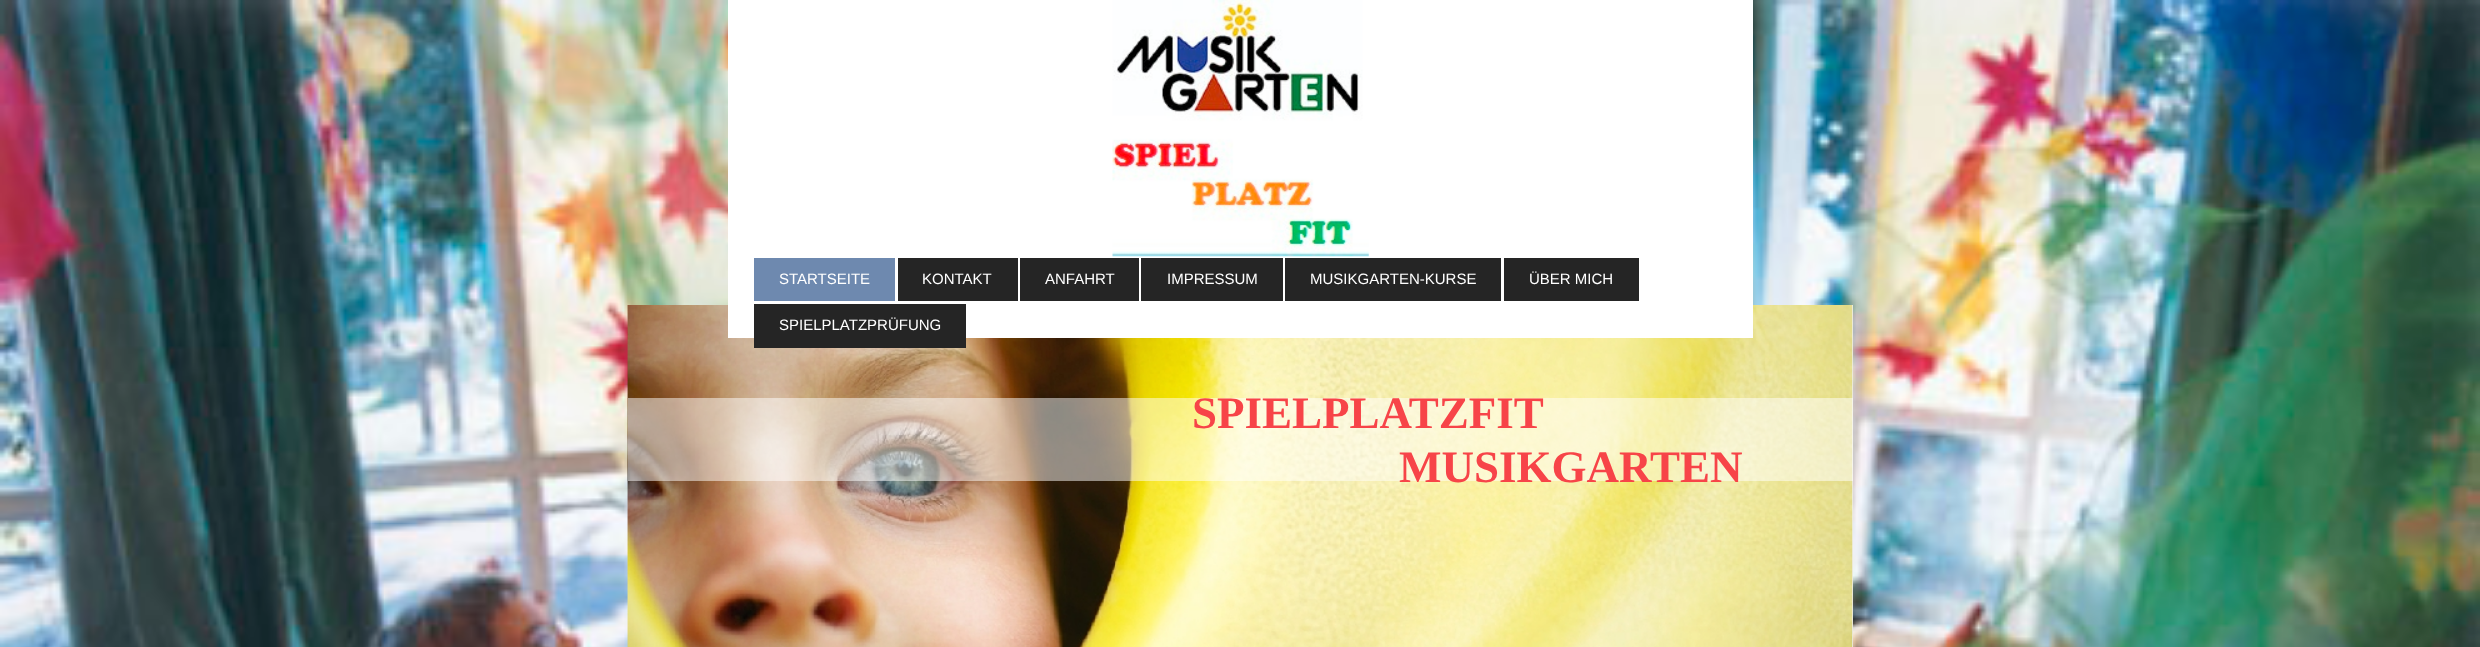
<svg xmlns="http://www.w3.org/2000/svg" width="2480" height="647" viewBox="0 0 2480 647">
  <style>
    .t1 { font: 15px Liberation Sans; fill: #fff; }
    .t2 { font: bold 45px Liberation Serif; fill: #f74448; }
  </style>
  <rect width="100%" height="100%" fill="#fff"/>
  <image x="0" y="0" width="2480" height="647" href="images/1.png"/>
  <image x="627" y="305" width="1" height="342" href="images/3.png"/>
  <rect x="1852" y="305" width="1" height="342" fill="#eee"/>
  <image x="627" y="305" width="1226" height="342" href="images/4.png"/>
  <rect x="728" y="0" width="1025" height="338" fill="#fff"/>
  <image x="1112" y="0" width="257" height="257" href="images/2.png"/>
  <rect x="754" y="258" width="141" height="43" fill="#6e89af"/>
  <text x="779" y="284" class="t1">STARTSEITE</text>
  <rect x="898" y="258" width="120" height="43" fill="#252525"/>
  <text x="922" y="284" class="t1">KONTAKT</text>
  <rect x="1020" y="258" width="119" height="43" fill="#252525"/>
  <text x="1045" y="284" class="t1">ANFAHRT</text>
  <rect x="1141" y="258" width="142" height="43" fill="#252525"/>
  <text x="1167" y="284" class="t1">IMPRESSUM</text>
  <rect x="1285" y="258" width="216" height="43" fill="#252525"/>
  <text x="1310" y="284" class="t1">MUSIKGARTEN-KURSE</text>
  <rect x="1504" y="258" width="135" height="43" fill="#252525"/>
  <text x="1529" y="284" class="t1">ÜBER MICH</text>
  <rect x="754" y="304" width="212" height="44" fill="#252525"/>
  <text x="779" y="330" class="t1">SPIELPLATZPRÜFUNG</text>
  <rect x="628" y="398" width="1225" height="83" fill="#ffffff80"/>
  <text x="1192" y="428" class="t2">SPIELPLATZFIT</text>
  <text x="1399" y="482" class="t2">MUSIKGARTEN</text>
</svg>
